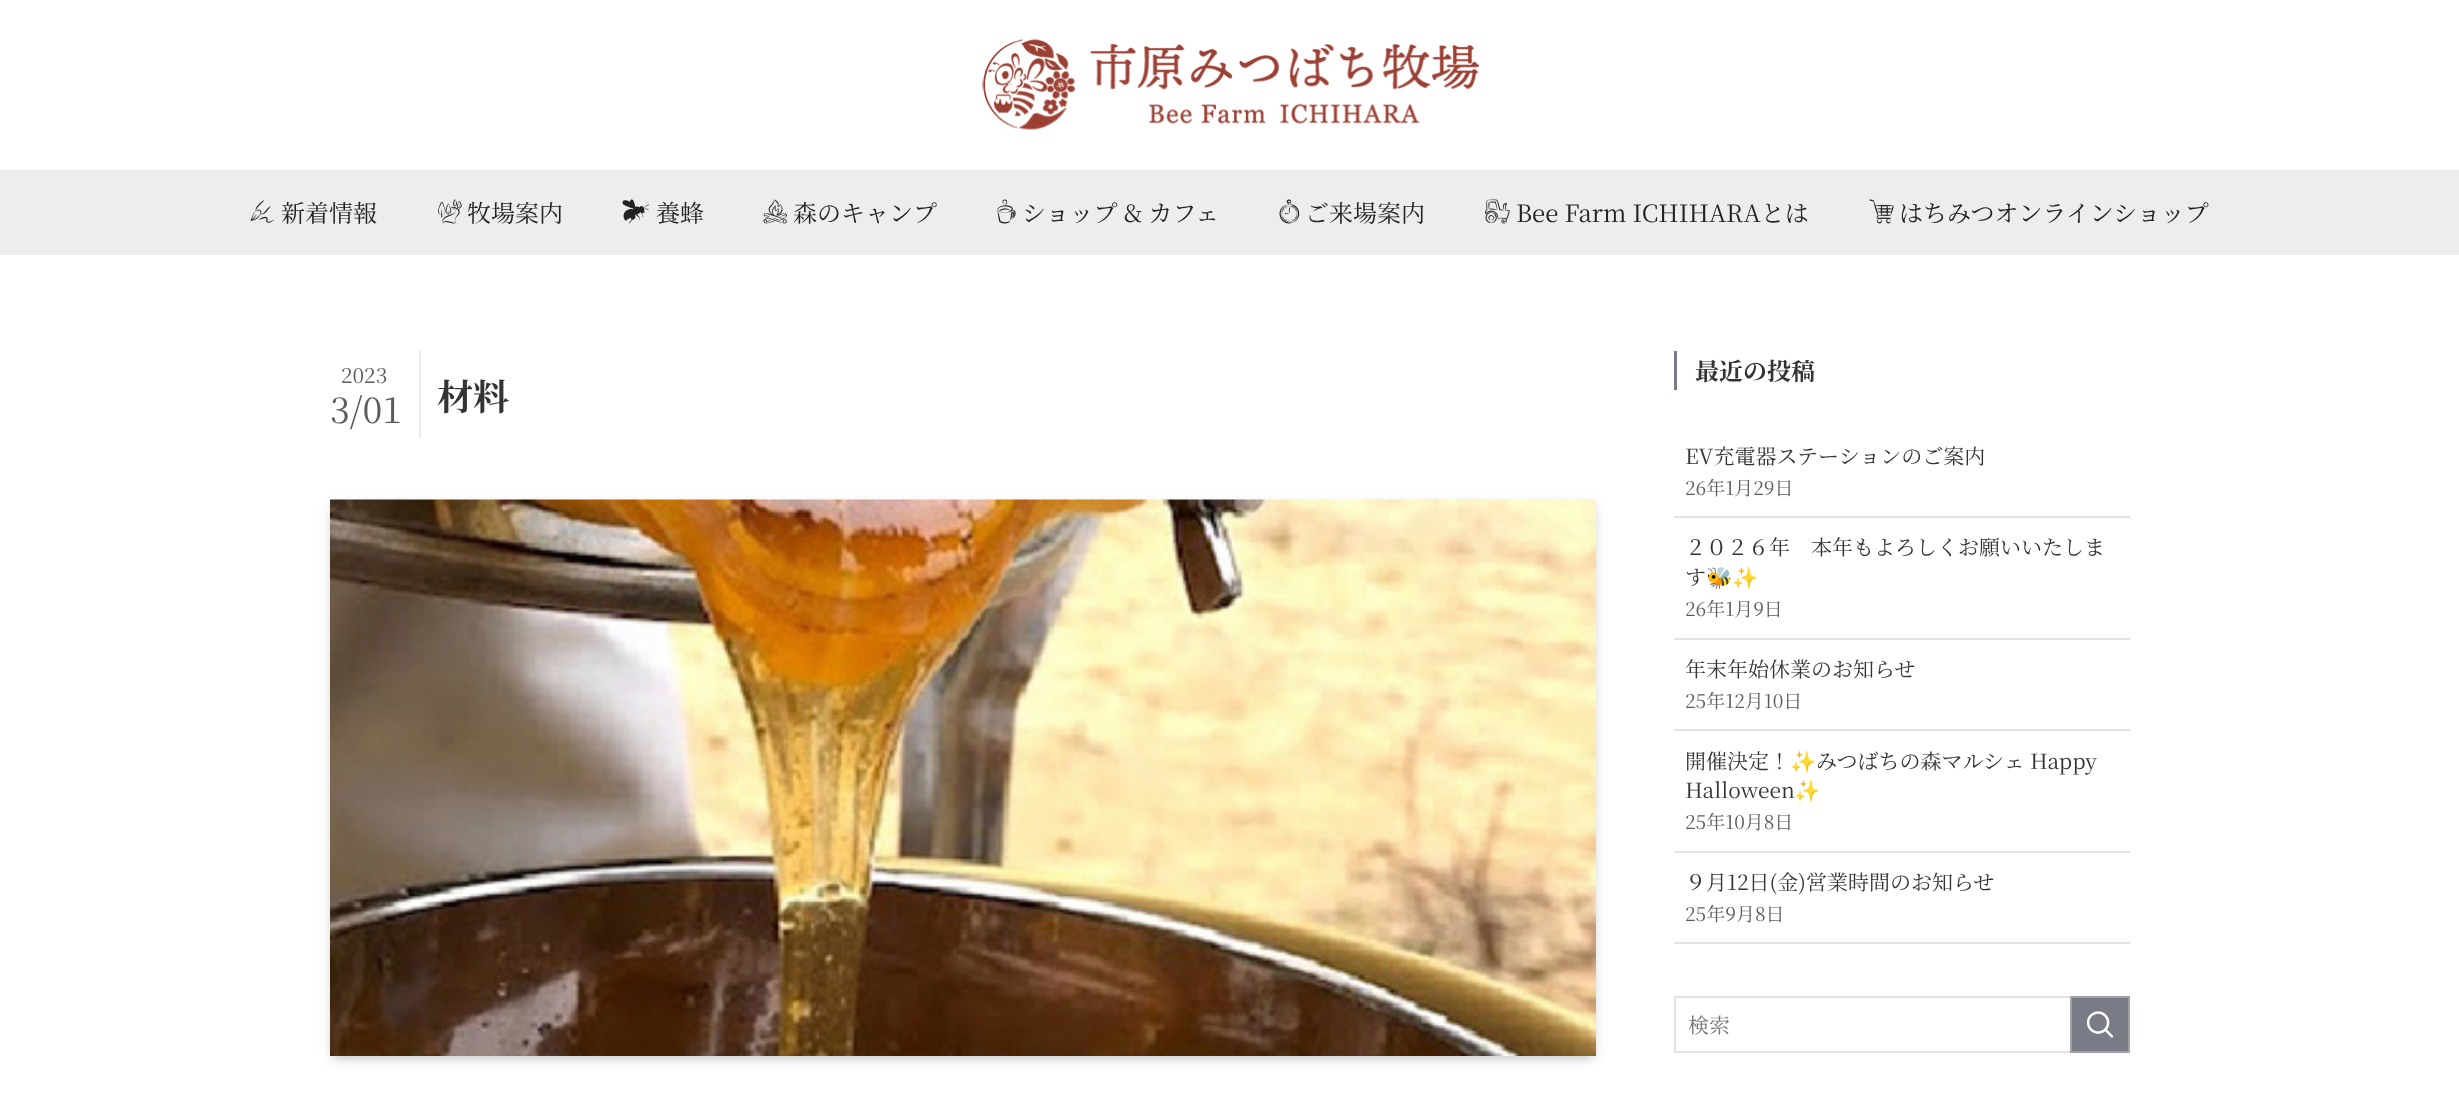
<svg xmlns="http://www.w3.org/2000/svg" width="2459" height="1094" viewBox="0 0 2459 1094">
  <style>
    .t1 { font: 24px Noto Serif JP; fill: #222; }
    .t2 { font: 21px Noto Serif JP; fill: #5c5c5c; }
    .t3 { font: 36px Noto Serif JP; fill: #5c5c5c; }
    .t4 { font: bold 36px Noto Serif JP; fill: #333; }
    .t5 { font: bold 24px Noto Serif JP; fill: #333; }
    .t6 { font: 21px Noto Serif JP; fill: #333; }
    .t7 { font: 19px Noto Serif JP; fill: #5c5c5c; }
    .t8 { font: 21px Noto Color Emoji; fill: #333; }
    .t9 { font: 21px Noto Serif JP; fill: #757575; }
  </style>
  <rect width="100%" height="100%" fill="#fff"/>
  <image x="982" y="39" width="497" height="91" href="images/1.png"/>
  <rect x="0" y="170" width="2459" height="85" fill="#ededed"/>
  <image x="250" y="200" width="25" height="23" href="images/2.png"/>
  <text x="281" y="222" class="t1">新着情報</text>
  <image x="438" y="199" width="24" height="25" href="images/3.png"/>
  <text x="467" y="222" class="t1">牧場案内</text>
  <image x="622" y="199" width="27" height="25" href="images/4.png"/>
  <text x="656" y="222" class="t1">養蜂</text>
  <image x="763" y="199" width="24" height="25" href="images/5.png"/>
  <text x="793" y="222" class="t1">森のキャンプ</text>
  <image x="997" y="199" width="19" height="25" href="images/6.png"/>
  <text x="1022" y="222" class="t1">ショップ &amp; カフェ</text>
  <image x="1279" y="199" width="21" height="25" href="images/7.png"/>
  <text x="1305" y="222" class="t1">ご来場案内</text>
  <image x="1485" y="199" width="25" height="25" href="images/8.png"/>
  <text x="1516" y="222" class="t1">Bee Farm ICHIHARAとは</text>
  <image x="1869" y="199" width="25" height="25" href="images/9.png"/>
  <text x="1899" y="222" class="t1">はちみつオンラインショップ</text>
  <rect x="419" y="351" width="2" height="87" fill="#e9e9e9"/>
  <text x="341" y="383" class="t2">2023</text>
  <text x="330" y="423" class="t3">3/01</text>
  <text x="437" y="410" class="t4">材料</text>
  <rect x="336" y="512" width="1254" height="544" fill="#00000033" filter="blur(6px)"/>
  <rect x="330" y="503" width="1266" height="556" fill="#0000001a" filter="blur(6px)"/>
  <image x="330" y="499" width="1266" height="557" href="images/10.png"/>
  <rect x="1674" y="351" width="3" height="39" fill="#797c87"/>
  <text x="1695" y="380" class="t5">最近の投稿</text>
  <rect x="1674" y="516" width="456" height="2" fill="#e3e3e3"/>
  <text x="1685" y="464" class="t6">EV充電器ステーションのご案内</text>
  <text x="1685" y="495" class="t7">26年1月29日</text>
  <rect x="1674" y="638" width="456" height="2" fill="#e3e3e3"/>
  <text x="1685" y="555" class="t6">２０２６年　本年もよろしくお願いいたしま</text>
  <text x="1685" y="585" class="t6">す</text>
  <text x="1706" y="585" class="t8">🐝✨</text>
  <text x="1685" y="616" class="t7">26年1月9日</text>
  <rect x="1674" y="729" width="456" height="2" fill="#e3e3e3"/>
  <text x="1685" y="677" class="t6">年末年始休業のお知らせ</text>
  <text x="1685" y="708" class="t7">25年12月10日</text>
  <rect x="1674" y="851" width="456" height="2" fill="#e3e3e3"/>
  <text x="1685" y="769" class="t6">開催決定！</text>
  <text x="1790" y="769" class="t8">✨</text>
  <text x="1816" y="769" class="t6">みつばちの森マルシェ Happy</text>
  <text x="1685" y="798" class="t6">Halloween</text>
  <text x="1794" y="798" class="t8">✨</text>
  <text x="1685" y="829" class="t7">25年10月8日</text>
  <rect x="1674" y="942" width="456" height="2" fill="#e3e3e3"/>
  <text x="1685" y="890" class="t6">９月12日(金)営業時間のお知らせ</text>
  <text x="1685" y="921" class="t7">25年9月8日</text>
  <rect x="1675" y="997" width="454" height="55" fill="none" stroke="#e3e3e3" stroke-width="2"/>
  <text x="1688" y="1033" class="t9">検索</text>
  <rect x="2071" y="997" width="58" height="55" fill="#797c87" stroke="#a0a2a7" stroke-width="2"/>
  <image x="2086" y="1011" width="28" height="27" href="images/11.png"/>
</svg>
